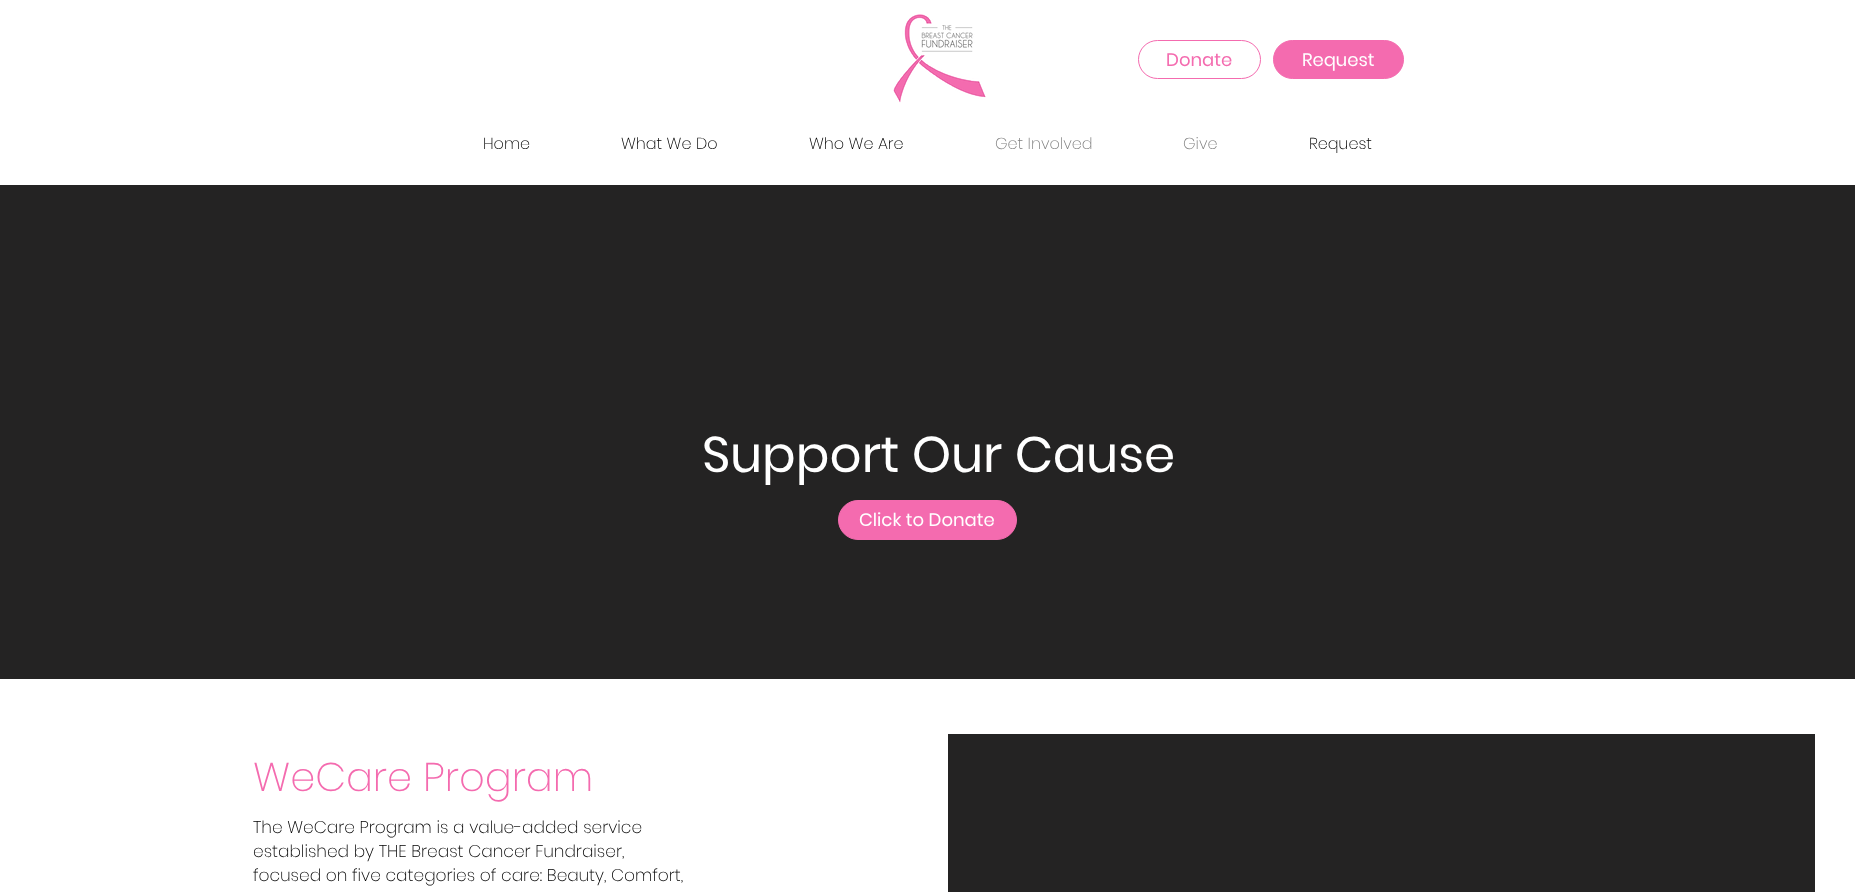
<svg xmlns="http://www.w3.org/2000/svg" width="1855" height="892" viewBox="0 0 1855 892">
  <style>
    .t1 { font: 18px Poppins; fill: #f46baf; }
    .t2 { font: 18px Poppins; fill: #fff; }
    .t3 { font: 200 16px Poppins; fill: #000; }
    .t4 { font: 200 16px Poppins; fill: #7f7f7f; }
    .t5 { font: 50px Poppins; fill: #fff; }
    .t6 { font: 200 40px Poppins; fill: #f46baf; }
    .t7 { font: 200 17px Poppins; fill: #000; }
  </style>
  <rect width="100%" height="100%" fill="#fff"/>
  <image x="893" y="14" width="93" height="89" href="images/1.png"/>
  <rect x="1138.5" y="40.5" width="122" height="38" rx="19" fill="none" stroke="#f46baf"/>
  <text x="1166" y="66" class="t1">Donate</text>
  <rect x="1273.5" y="40.5" width="130" height="38" rx="19" fill="#f46baf" stroke="#f46baf"/>
  <text x="1302" y="66" class="t2">Request</text>
  <text x="483" y="149" class="t3">Home</text>
  <text x="621" y="149" class="t3">What We Do</text>
  <text x="809" y="149" class="t3">Who We Are</text>
  <text x="995" y="149" class="t4">Get Involved</text>
  <text x="1183" y="149" class="t4">Give</text>
  <text x="1309" y="149" class="t3">Request</text>
  <rect x="0" y="185" width="1855" height="494" fill="#242323"/>
  <text x="702" y="472" class="t5">Support Our Cause</text>
  <rect x="838.5" y="500.5" width="178" height="39" rx="19.5" fill="#f46baf" stroke="#f46baf"/>
  <text x="859" y="526" class="t2">Click to Donate</text>
  <text x="253" y="791" class="t6">WeCare Program</text>
  <text x="253" y="833" class="t7">The WeCare Program is a value-added service</text>
  <text x="253" y="857" class="t7">established by THE Breast Cancer Fundraiser,</text>
  <text x="253" y="881" class="t7">focused on five categories of care: Beauty, Comfort,</text>
  <rect x="948" y="734" width="867" height="158" fill="#242323"/>
</svg>
